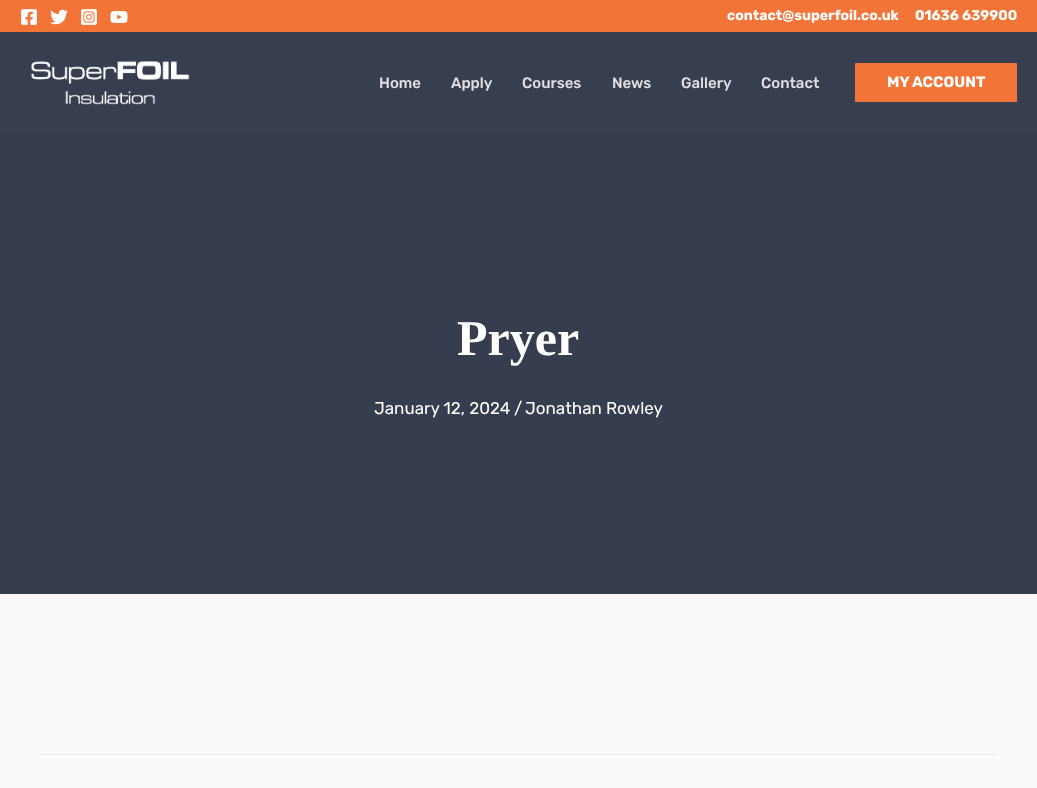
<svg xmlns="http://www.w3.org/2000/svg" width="1037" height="788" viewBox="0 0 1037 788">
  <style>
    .t1 { font: bold 14px Rubik; fill: #fff; }
    .t2 { font: 500 15px Rubik; fill: #dfe0e3; }
    .t3 { font: bold 15px Rubik; fill: #fff; }
    .t4 { font: bold 50px Liberation Serif; fill: #fff; }
    .t5 { font: 17px Rubik; fill: #fff; }
  </style>
  <rect width="100%" height="100%" fill="#fafafa"/>
  <rect x="0" y="0" width="1037" height="32" fill="#f37437"/>
  <image x="21" y="9" width="16" height="16" href="images/1.png"/>
  <image x="50" y="9" width="18" height="16" href="images/2.png"/>
  <image x="81" y="9" width="16" height="16" href="images/3.png"/>
  <image x="110" y="11" width="18" height="12" href="images/4.png"/>
  <text x="727" y="20" class="t1">contact@superfoil.co.uk</text>
  <text x="915" y="20" class="t1">01636 639900</text>
  <rect x="0" y="32" width="1037" height="101" fill="#363e4f"/>
  <image x="30" y="61" width="160" height="44" href="images/5.png"/>
  <text x="379" y="88" class="t2">Home</text>
  <text x="451" y="88" class="t2">Apply</text>
  <text x="522" y="88" class="t2">Courses</text>
  <text x="612" y="88" class="t2">News</text>
  <text x="681" y="88" class="t2">Gallery</text>
  <text x="761" y="88" class="t2">Contact</text>
  <rect x="855" y="63" width="162" height="39" fill="#f37437"/>
  <text x="887" y="87" class="t3">MY ACCOUNT</text>
  <rect x="0" y="133" width="1037" height="461" fill="#363d4f"/>
  <text x="457" y="355" class="t4">Pryer</text>
  <text x="374" y="414" class="t5">January 12, 2024</text>
  <text x="514" y="414" class="t5">/</text>
  <text x="525" y="414" class="t5">Jonathan Rowley</text>
  <rect x="40" y="754" width="957" height="1" fill="#e8e8e8"/>
</svg>
